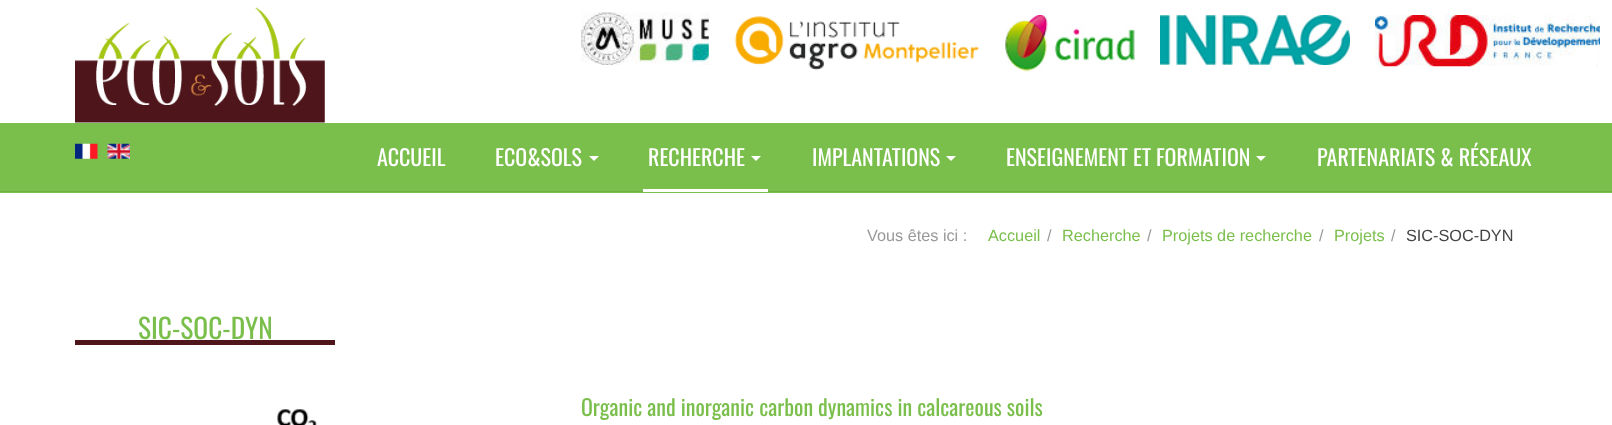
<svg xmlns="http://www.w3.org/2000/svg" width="1612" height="425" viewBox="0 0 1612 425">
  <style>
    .t1 { font: 22px Oswald; fill: #fff; }
    .t2 { font: 16.25px Liberation Sans; fill: #999; }
    .t3 { font: 16.25px Liberation Sans; fill: #7abf4c; }
    .t4 { font: 16.25px Liberation Sans; fill: #444; }
    .t5 { font: 27.5px Oswald; fill: #7abf4c; }
    .t6 { font: 22px Oswald; fill: #7abf4c; }
  </style>
  <rect width="100%" height="100%" fill="#fff"/>
  <image x="75" y="7" width="250" height="116" href="images/1.png"/>
  <rect x="0" y="123" width="1612" height="70" fill="#7abf4c"/>
  <image x="75" y="143" width="23" height="16" href="images/2.png"/>
  <image x="107" y="143" width="23" height="16" href="images/3.png"/>
  <image x="581" y="12" width="128" height="53" href="images/4.png"/>
  <image x="734" y="16" width="245" height="55" href="images/5.png"/>
  <image x="1005" y="15" width="130" height="57" href="images/6.png"/>
  <image x="1160" y="15" width="190" height="50" href="images/7.png"/>
  <image x="1375" y="15" width="225" height="52" href="images/8.png"/>
  <rect x="0" y="191" width="1612" height="1" fill="#6db240"/>
  <text x="377" y="166" class="t1">ACCUEIL</text>
  <text x="495" y="166" class="t1">ECO&amp;SOLS</text>
  <path d="M589 156H599L594 161Z" fill="#fff"/>
  <rect x="643" y="189" width="125" height="3" fill="#fff"/>
  <text x="648" y="166" class="t1">RECHERCHE</text>
  <path d="M751 156H761L756 161Z" fill="#fff"/>
  <text x="812" y="166" class="t1">IMPLANTATIONS</text>
  <path d="M946 156H956L951 161Z" fill="#fff"/>
  <text x="1006" y="166" class="t1">ENSEIGNEMENT ET FORMATION</text>
  <path d="M1256 156H1266L1261 161Z" fill="#fff"/>
  <text x="1317" y="166" class="t1">PARTENARIATS &amp; RÉSEAUX</text>
  <text x="867" y="241" class="t2">Vous êtes ici :</text>
  <text x="988" y="241" class="t3">Accueil</text>
  <text x="1047" y="241" class="t2">/</text>
  <text x="1062" y="241" class="t3">Recherche</text>
  <text x="1147" y="241" class="t2">/</text>
  <text x="1162" y="241" class="t3">Projets de recherche</text>
  <text x="1319" y="241" class="t2">/</text>
  <text x="1334" y="241" class="t3">Projets</text>
  <text x="1391" y="241" class="t2">/</text>
  <text x="1406" y="241" class="t4">SIC-SOC-DYN</text>
  <rect x="75" y="340" width="260" height="5" fill="#4e161b"/>
  <text x="138" y="339" class="t5">SIC-SOC-DYN</text>
  <image x="277" y="409" width="40" height="16" href="images/9.png"/>
  <text x="581" y="416" class="t6">Organic and inorganic carbon dynamics in calcareous soils</text>
</svg>
